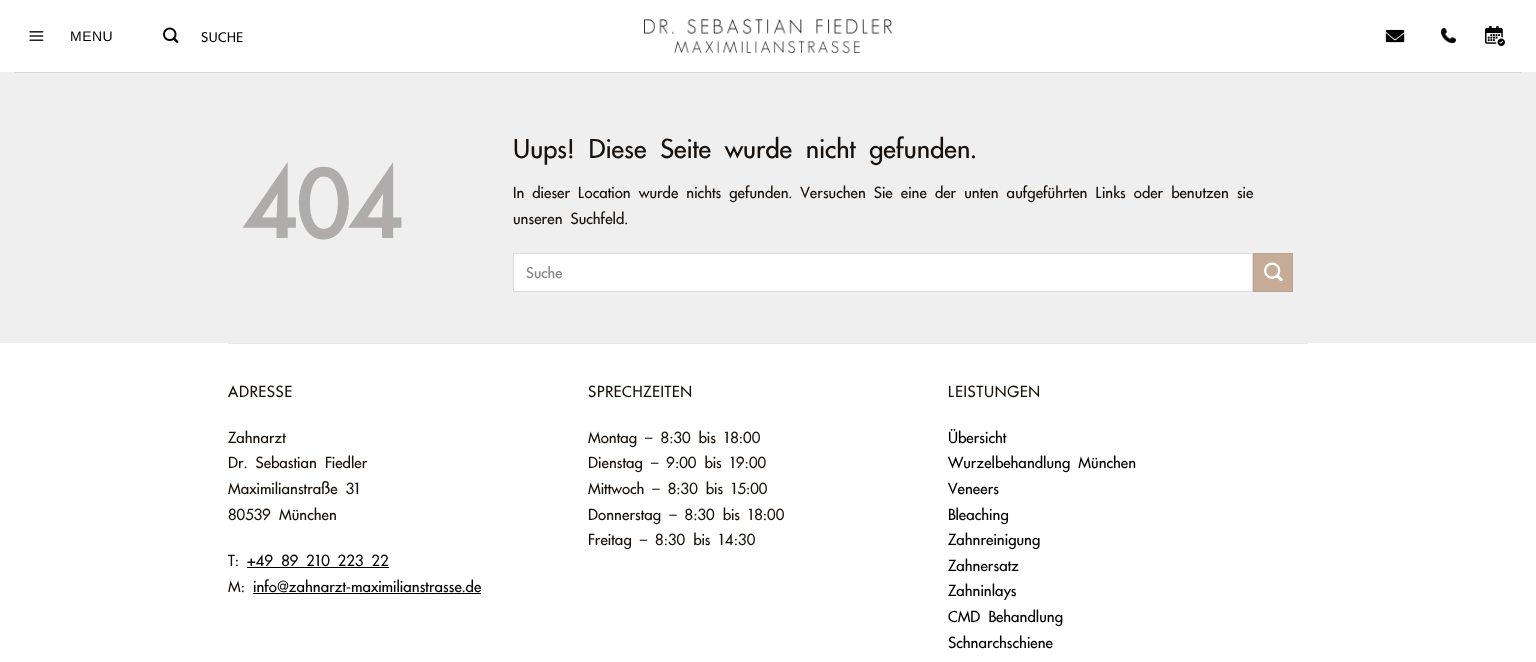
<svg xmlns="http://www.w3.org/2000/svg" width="1536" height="662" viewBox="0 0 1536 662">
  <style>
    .t1 { font: 14px Liberation Sans; letter-spacing: 0.5px; fill: #000; }
    .t2 { font: 100 14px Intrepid; letter-spacing: 0.5px; fill: #000; }
    .t3 { font: bold 96px Intrepid; fill: #afacab; }
    .t4 { font: 100 27.25px Intrepid; fill: #19110b; }
    .t5 { font: 100 16px Intrepid; fill: #19110b; }
    .t6 { font: 100 15.5px Intrepid; fill: #858585; }
    .t7 { font: 100 16px Intrepid; letter-spacing: 0.75px; fill: #19110b; }
    .t8 { font: 100 16px Intrepid; fill: #000; }
  </style>
  <rect width="100%" height="100%" fill="#fff"/>
  <image x="29" y="31" width="15" height="10" href="images/1.png"/>
  <text x="70" y="41" class="t1">MENU</text>
  <image x="163" y="27" width="16" height="16" href="images/2.png"/>
  <text x="201" y="42" class="t2">SUCHE</text>
  <image x="644" y="19" width="248" height="34" href="images/3.png"/>
  <image x="1385" y="29" width="20" height="14" href="images/4.png"/>
  <image x="1441" y="28" width="15" height="15" href="images/5.png"/>
  <image x="1485" y="26" width="20" height="20" href="images/6.png"/>
  <rect x="0" y="72" width="1536" height="271" fill="#efefef"/>
  <rect x="15" y="72" width="1506" height="1" fill="#dad9d8"/>
  <text x="243" y="238" class="t3">404</text>
  <text x="513" y="158" class="t4">Uups! Diese Seite wurde nicht gefunden.</text>
  <text x="513" y="198" class="t5">In dieser Location wurde nichts gefunden. Versuchen Sie eine der unten aufgeführten Links oder benutzen sie</text>
  <text x="513" y="224" class="t5">unseren Suchfeld.</text>
  <rect x="513.5" y="253.5" width="739" height="38" fill="#fff" stroke="#ddd"/>
  <text x="526" y="278" class="t6">Suche</text>
  <rect x="1253.5" y="253.5" width="39" height="38" fill="#c6ac96" stroke="#bca38f"/>
  <image x="1264" y="262" width="19" height="20" href="images/7.png"/>
  <rect x="228" y="343" width="1080" height="1" fill="#eae8e4"/>
  <text x="228" y="397" class="t7">ADRESSE</text>
  <text x="228" y="443" class="t5">Zahnarzt</text>
  <text x="228" y="468" class="t5">Dr. Sebastian Fiedler</text>
  <text x="228" y="494" class="t5">Maximilianstraße 31</text>
  <text x="228" y="520" class="t5">80539 München</text>
  <text x="228" y="566" class="t5">T:</text>
  <text x="247" y="566" class="t8">+49 89 210 223 22</text>
  <rect x="247" y="567" width="142" height="1" fill="#000"/>
  <text x="228" y="592" class="t5">M:</text>
  <text x="253" y="592" class="t8">info@zahnarzt-maximilianstrasse.de</text>
  <rect x="253" y="593" width="228" height="1" fill="#000"/>
  <text x="588" y="397" class="t7">SPRECHZEITEN</text>
  <text x="588" y="443" class="t5">Montag – 8:30 bis 18:00</text>
  <text x="588" y="468" class="t5">Dienstag – 9:00 bis 19:00</text>
  <text x="588" y="494" class="t5">Mittwoch – 8:30 bis 15:00</text>
  <text x="588" y="520" class="t5">Donnerstag – 8:30 bis 18:00</text>
  <text x="588" y="545" class="t5">Freitag – 8:30 bis 14:30</text>
  <text x="948" y="397" class="t7">LEISTUNGEN</text>
  <text x="948" y="443" class="t8">Übersicht</text>
  <text x="948" y="468" class="t8">Wurzelbehandlung München</text>
  <text x="948" y="494" class="t8">Veneers</text>
  <text x="948" y="520" class="t8">Bleaching</text>
  <text x="948" y="545" class="t8">Zahnreinigung</text>
  <text x="948" y="571" class="t8">Zahnersatz</text>
  <text x="948" y="596" class="t8">Zahninlays</text>
  <text x="948" y="622" class="t8">CMD Behandlung</text>
  <text x="948" y="648" class="t8">Schnarchschiene</text>
</svg>
